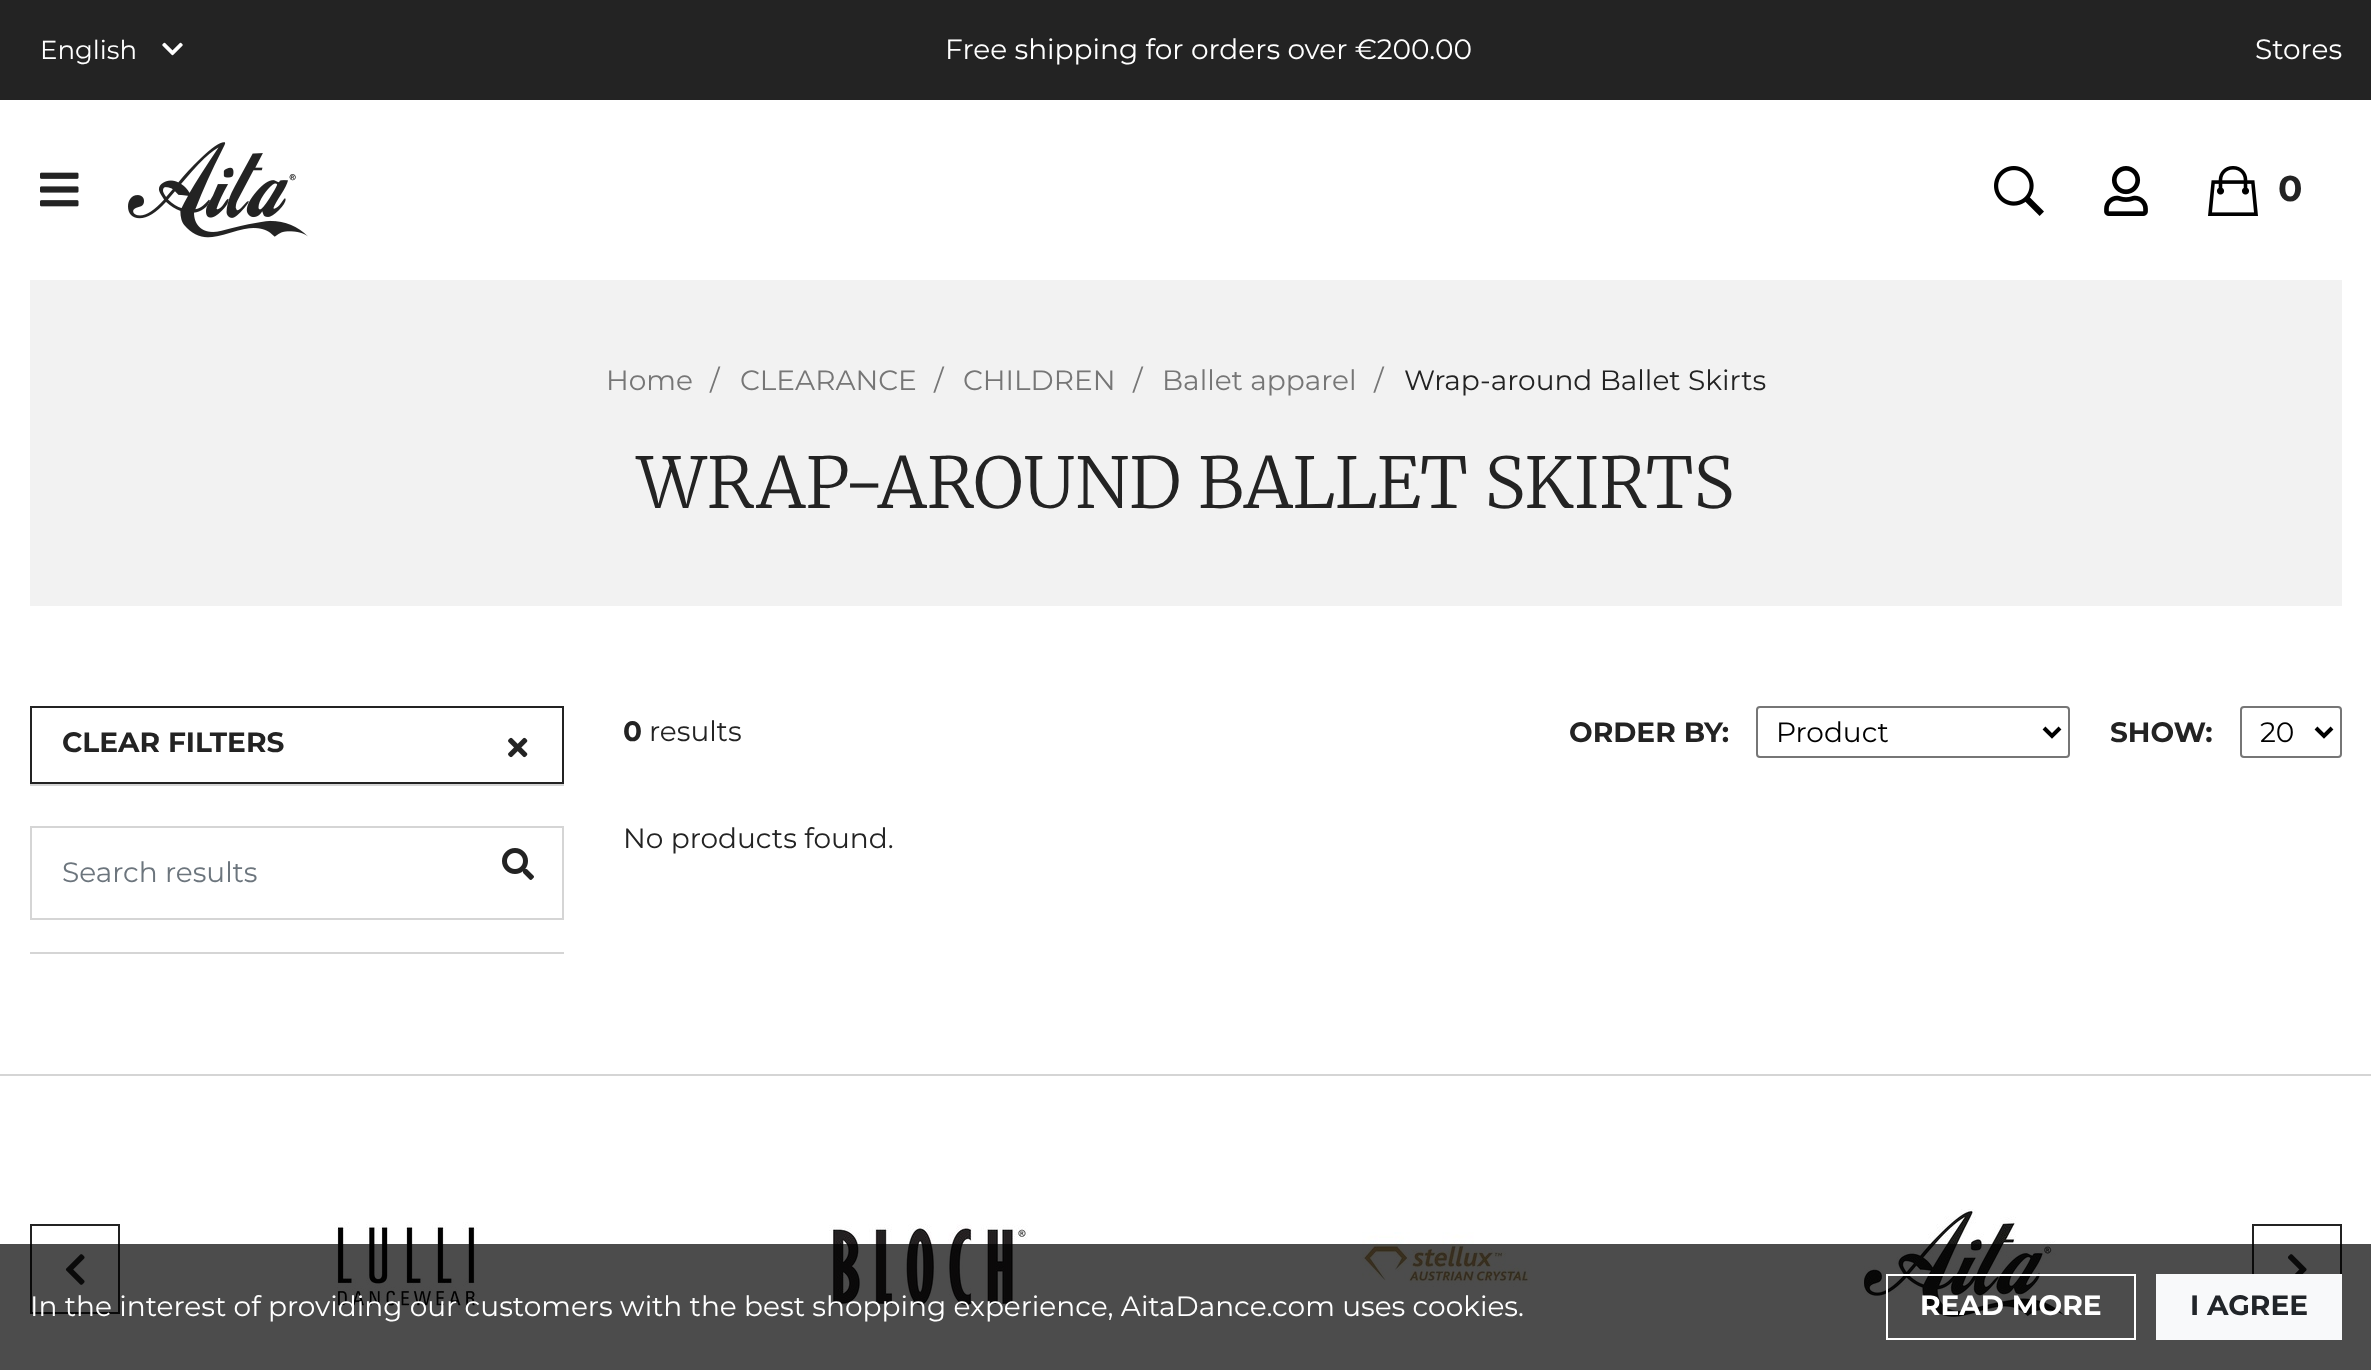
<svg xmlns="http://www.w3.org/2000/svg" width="2371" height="1370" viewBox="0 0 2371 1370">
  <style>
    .t1 { font: 26px Montserrat; fill: #fff; }
    .t2 { font: 28px Montserrat; fill: #fff; }
    .t3 { font: bold 36px Montserrat; fill: #232323; }
    .t4 { font: 28px Montserrat; fill: #767676; }
    .t5 { font: 28px Montserrat; fill: #232323; }
    .t6 { font: 300 70px Merriweather; fill: #232323; }
    .t7 { font: bold 28px Montserrat; fill: #232323; }
    .t8 { font: 28px Montserrat; fill: #6c757d; }
    .t9 { font: 28px Montserrat; fill: #000; }
    .t10 { font: bold 28px Montserrat; fill: #fff; }
    .t11 { font: bold 28px Montserrat; fill: #212529; }
  </style>
  <rect width="100%" height="100%" fill="#fff"/>
  <rect x="0" y="0" width="2371" height="100" fill="#232323"/>
  <text x="40" y="59" class="t1">English</text>
  <image x="162" y="42" width="21" height="14" href="images/1.png"/>
  <text x="945" y="59" class="t2">Free shipping for orders over €200.00</text>
  <text x="2255" y="59" class="t2">Stores</text>
  <image x="40" y="172" width="39" height="35" href="images/2.png"/>
  <image x="128" y="142" width="180" height="96" href="images/3.png"/>
  <image x="1994" y="166" width="50" height="50" href="images/4.png"/>
  <image x="2104" y="166" width="44" height="50" href="images/5.png"/>
  <image x="2208" y="166" width="50" height="50" href="images/6.png"/>
  <text x="2278" y="201" class="t3">0</text>
  <rect x="30" y="280" width="2312" height="326" fill="#f2f2f2"/>
  <text x="606" y="390" class="t4">Home</text>
  <text x="710" y="390" class="t4">/</text>
  <text x="740" y="390" class="t4">CLEARANCE</text>
  <text x="934" y="390" class="t4">/</text>
  <text x="963" y="390" class="t4">CHILDREN</text>
  <text x="1133" y="390" class="t4">/</text>
  <text x="1162" y="390" class="t4">Ballet apparel</text>
  <text x="1374" y="390" class="t4">/</text>
  <text x="1404" y="390" class="t5">Wrap-around Ballet Skirts</text>
  <text x="637" y="508" class="t6">WRAP-AROUND BALLET SKIRTS</text>
  <rect x="30" y="784" width="534" height="2" fill="#d5d5d5"/>
  <rect x="31" y="707" width="532" height="76" fill="none" stroke="#232323" stroke-width="2"/>
  <text x="62" y="752" class="t7">CLEAR FILTERS</text>
  <image x="508" y="737" width="20" height="21" href="images/7.png"/>
  <rect x="30" y="952" width="534" height="2" fill="#d5d5d5"/>
  <rect x="31" y="827" width="532" height="92" fill="none" stroke="#d5d5d5" stroke-width="2"/>
  <text x="62" y="882" class="t8">Search results</text>
  <image x="502" y="848" width="32" height="32" href="images/8.png"/>
  <text x="623" y="741" class="t7">0</text>
  <text x="649" y="741" class="t5">results</text>
  <text x="1569" y="742" class="t7">ORDER BY:</text>
  <rect x="1757" y="707" width="312" height="50" rx="3" fill="none" stroke="#767676" stroke-width="2"/>
  <path d="M2044 728L2052 736L2060 728" fill="none" stroke="#000" stroke-width="4"/>
  <text x="1776" y="742" class="t9">Product</text>
  <text x="2110" y="742" class="t7">SHOW:</text>
  <rect x="2241" y="707" width="100" height="50" rx="3" fill="none" stroke="#767676" stroke-width="2"/>
  <path d="M2316 728L2324 736L2332 728" fill="none" stroke="#000" stroke-width="4"/>
  <text x="2260" y="742" class="t9">20</text>
  <text x="623" y="848" class="t5">No products found.</text>
  <rect x="0" y="1074" width="2371" height="2" fill="#d5d5d5"/>
  <rect x="31" y="1225" width="88" height="88" fill="none" stroke="#232323" stroke-width="2"/>
  <image x="65" y="1254" width="20" height="31" href="images/9.png"/>
  <image x="334" y="1222" width="144" height="88" href="images/10.png"/>
  <image x="829" y="1224" width="199" height="87" href="images/11.png"/>
  <image x="1362" y="1232" width="170" height="55" href="images/12.png"/>
  <image x="1864" y="1209" width="200" height="110" href="images/13.png"/>
  <rect x="2253" y="1225" width="88" height="88" fill="none" stroke="#232323" stroke-width="2"/>
  <image x="2287" y="1254" width="20" height="20" href="images/14.png"/>
  <rect x="0" y="1244" width="2371" height="126" fill="#000000b3"/>
  <text x="30" y="1316" class="t2">In the interest of providing our customers with the best shopping experience, AitaDance.com uses cookies.</text>
  <rect x="1887" y="1275" width="248" height="64" fill="none" stroke="#fff" stroke-width="2"/>
  <text x="1920" y="1315" class="t10">READ MORE</text>
  <rect x="2156" y="1274" width="186" height="66" fill="#f8f9fa"/>
  <text x="2190" y="1315" class="t11">I AGREE</text>
</svg>
